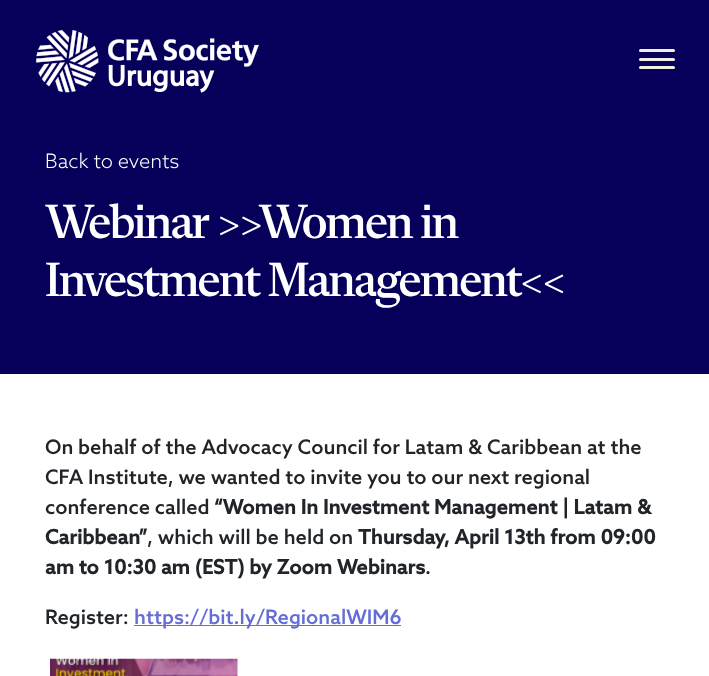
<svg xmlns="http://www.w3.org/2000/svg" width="709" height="676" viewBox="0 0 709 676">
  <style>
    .t1 { font: 300 20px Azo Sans; fill: #fff; }
    .t2 { font: 500 48.75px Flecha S; letter-spacing: -2px; fill: #fff; }
    .t3 { font: 500 20px Azo Sans; fill: #212529; }
    .t4 { font: bold 20px Azo Sans; fill: #212529; }
    .t5 { font: 500 20px Azo Sans; fill: #656dd6; }
  </style>
  <rect width="100%" height="100%" fill="#fff"/>
  <rect x="0" y="0" width="709" height="374" fill="#06005a"/>
  <image x="36" y="30" width="223" height="63" href="images/1.png"/>
  <rect x="639" y="49" width="36" height="3" rx="1.5" fill="#f5ece0"/>
  <rect x="639" y="58" width="36" height="3" rx="1.5" fill="#f5ece0"/>
  <rect x="639" y="66" width="36" height="3" rx="1.5" fill="#f5ece0"/>
  <text x="45" y="168" class="t1">Back to events</text>
  <text x="45" y="238" class="t2">Webinar &gt;&gt;Women in</text>
  <text x="45" y="296" class="t2">Investment Management&lt;&lt;</text>
  <text x="45" y="454" class="t3">On behalf of the Advocacy Council for Latam &amp; Caribbean at the</text>
  <text x="45" y="484" class="t3">CFA Institute, we wanted to invite you to our next regional</text>
  <text x="45" y="514" class="t3">conference called</text>
  <text x="214" y="514" class="t4">“Women In Investment Management | Latam &amp;</text>
  <text x="45" y="544" class="t4">Caribbean”</text>
  <text x="147" y="544" class="t3">, which will be held on</text>
  <text x="358" y="544" class="t4">Thursday, April 13th from 09:00</text>
  <text x="45" y="574" class="t4">am to 10:30 am (EST) by Zoom Webinars</text>
  <text x="425" y="574" class="t3">.</text>
  <text x="45" y="624" class="t3">Register:</text>
  <rect x="134" y="625" width="267" height="1" fill="#656dd6"/>
  <text x="134" y="624" class="t5">https://bit.ly/RegionalWIM6</text>
  <image x="50" y="658" width="188" height="18" href="images/2.png"/>
</svg>
